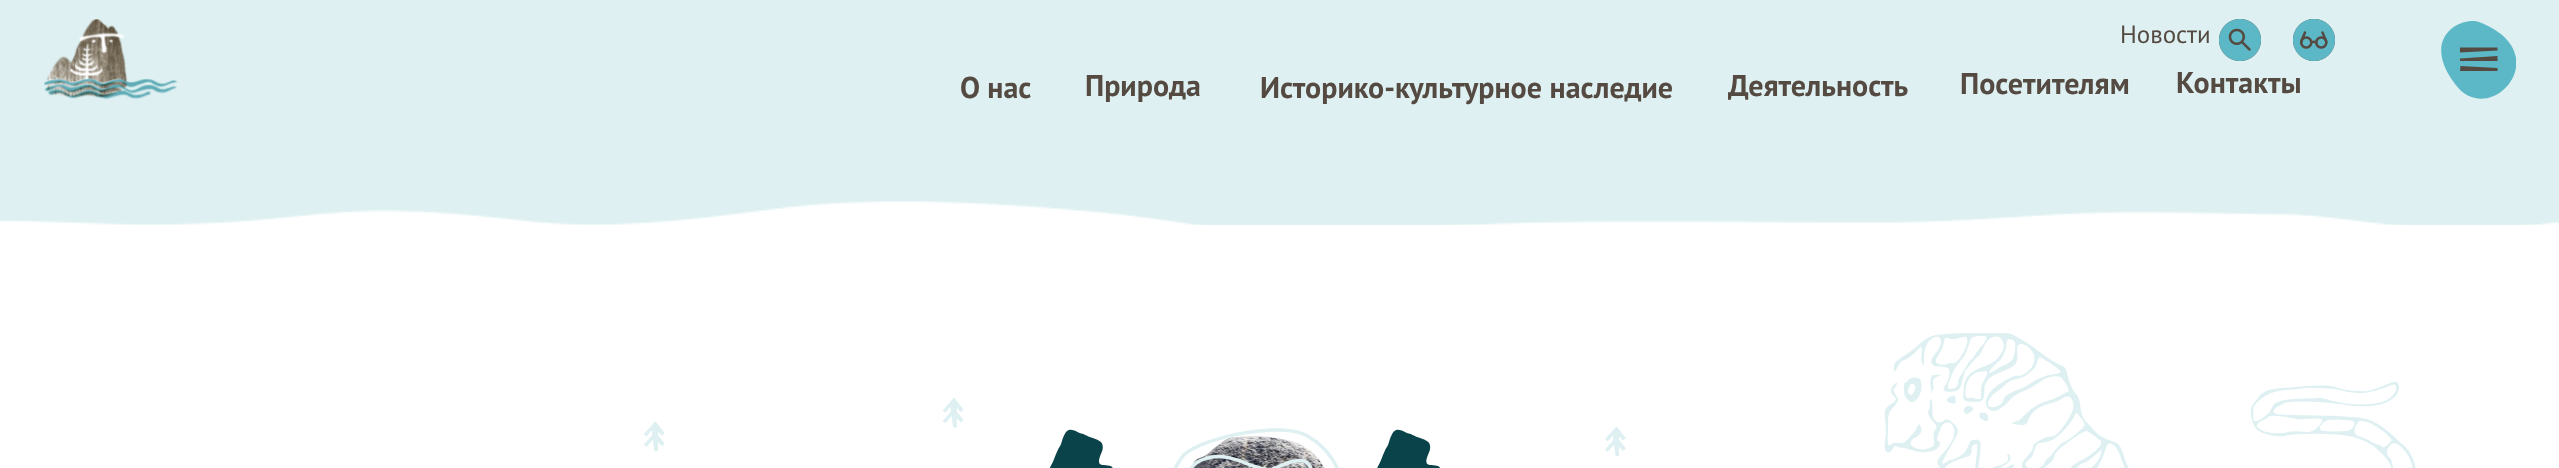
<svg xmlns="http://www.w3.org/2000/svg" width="2559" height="468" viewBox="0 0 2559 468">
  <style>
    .t1 { font: 25px PT Sans; fill: #544a42; }
    .t2 { font: bold 30px PT Sans; fill: #544a42; }
  </style>
  <defs>
    <clipPath id="clip1"><rect x="2441" y="21" width="75" height="78"/></clipPath>
  </defs>
  <rect width="100%" height="100%" fill="#fff"/>
  <rect x="0" y="0" width="2559" height="225" fill="#def0f1"/>
  <image x="0" y="201" width="2559" height="24" href="images/1.png"/>
  <image x="44" y="19" width="179" height="81" href="images/2.png"/>
  <image x="2219" y="19" width="42" height="42" href="images/3.png"/>
  <image x="2219" y="19" width="42" height="42" href="images/4.png"/>
  <image x="2293" y="19" width="42" height="42" href="images/5.png"/>
  <text x="2120" y="43" class="t1">Новости</text>
  <image x="2293" y="19" width="42" height="42" href="images/6.png"/>
  <g clip-path="url(#clip1)">
    <path d="M2455 84C2489 131 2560 53 2479 22C2463 16 2419 36 2455 84Z" fill="#5cb8c6" fill-rule="evenodd"/>
  </g>
  <path d="M2497.5 47.5H2460V52.5L2497.5 50.5ZM2460 61H2497.5V56L2460 58.5ZM2460 71H2497.5V68L2460.5 66Z" fill="#544a42"/>
  <text x="960" y="98" class="t2">О нас</text>
  <text x="1085" y="96" class="t2">Природа</text>
  <text x="1260" y="98" class="t2">Историко-культурное наследие</text>
  <text x="1728" y="96" class="t2">Деятельность</text>
  <text x="1960" y="94" class="t2">Посетителям</text>
  <text x="2176" y="93" class="t2">Контакты</text>
  <image x="644" y="398" width="320" height="54" href="images/7.png"/>
  <image x="1049" y="428" width="391" height="40" href="images/8.png"/>
  <path d="M1619 456H1615.5L1613 435.5L1607.5 441.5L1605 439L1616.5 426.5L1626 438L1623 440.5L1619 436.5Z" fill="#def0f1"/>
  <path d="M1623 451L1615.5 443L1607.5 452L1605 449.5L1616.5 436.5L1626 448.5Z" fill="#def0f1"/>
  <image x="1884" y="333" width="532" height="135" href="images/9.png"/>
</svg>
